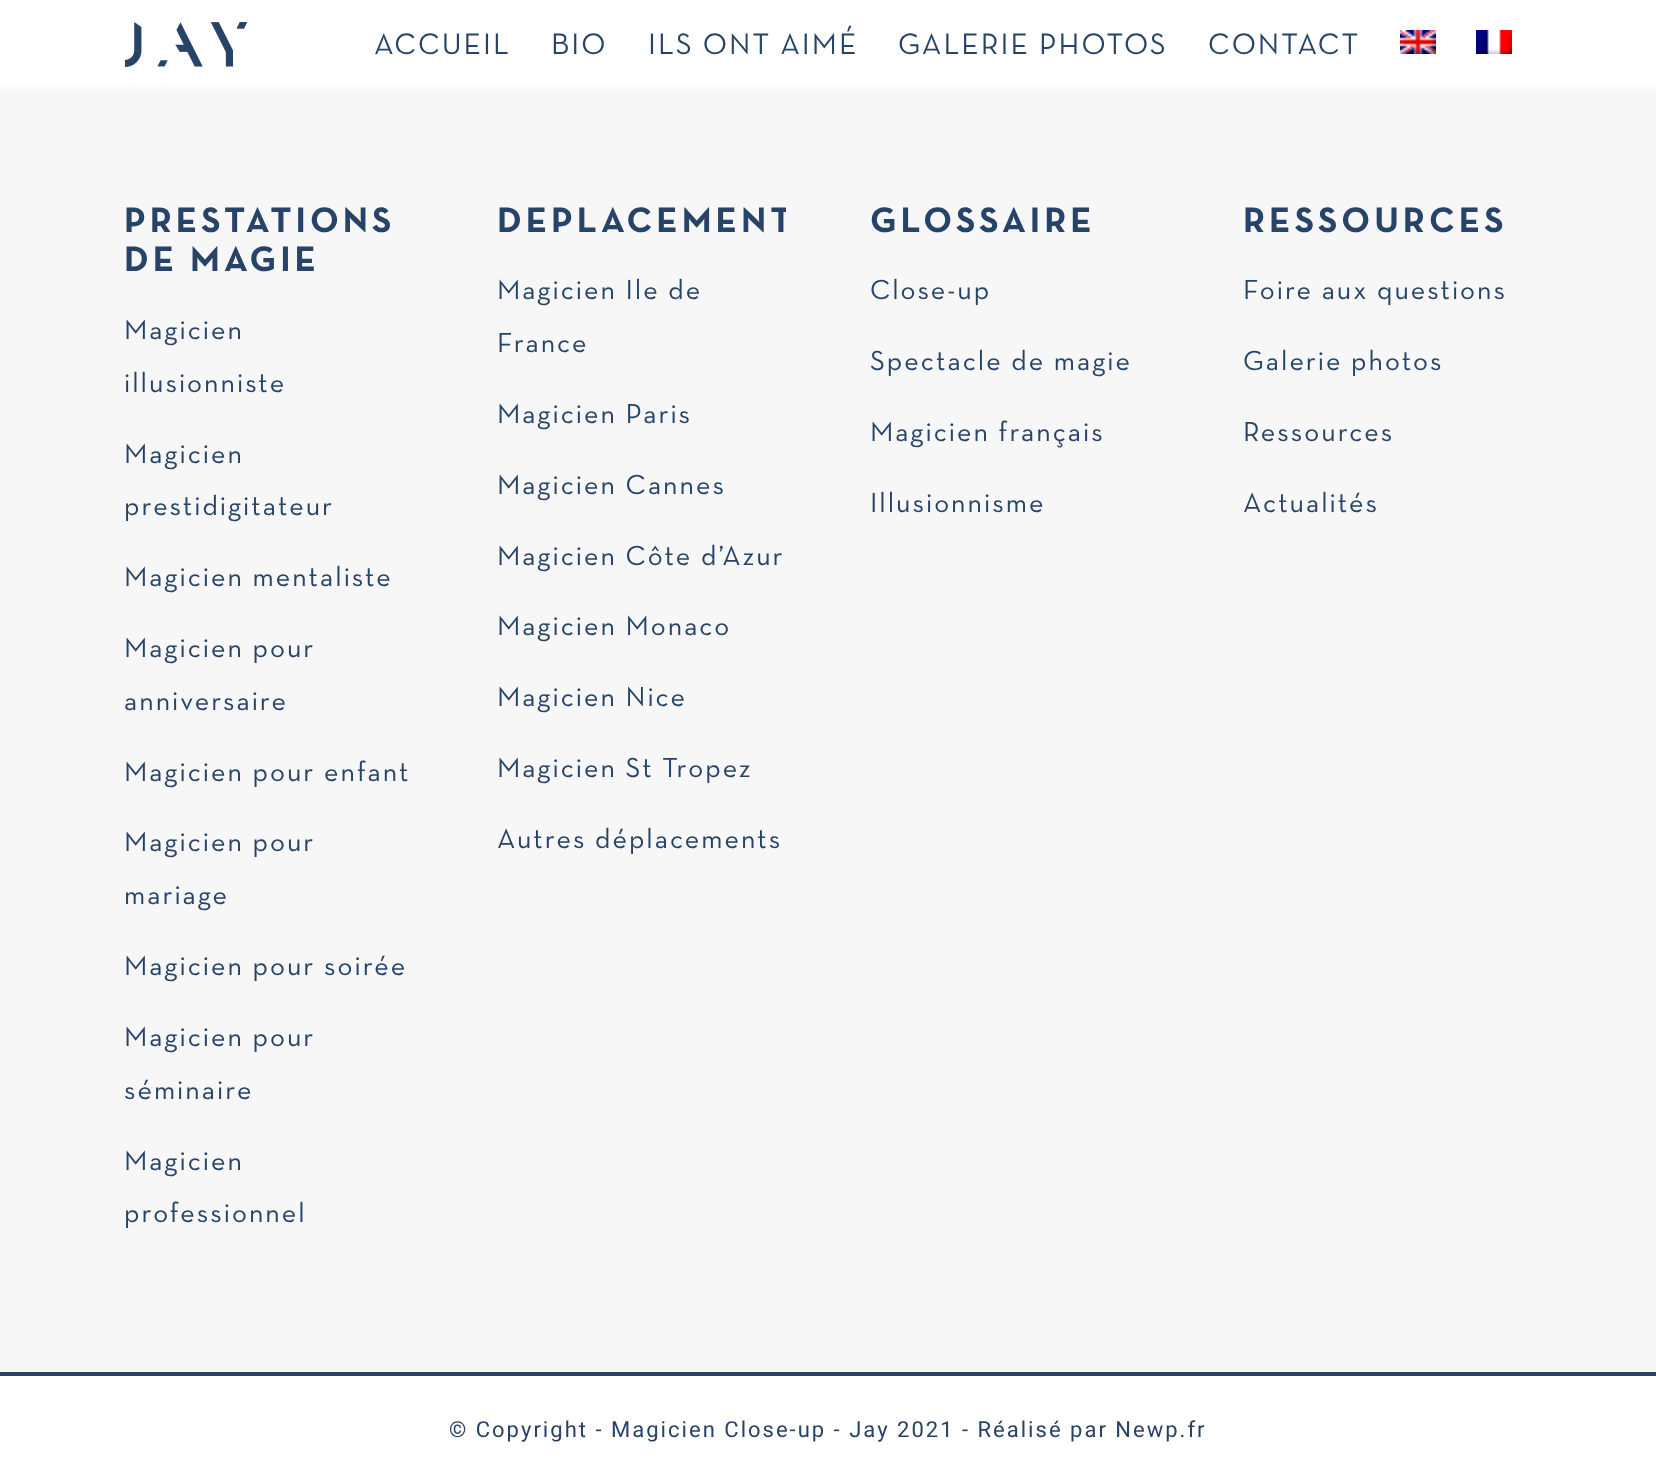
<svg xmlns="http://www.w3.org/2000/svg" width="1656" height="1483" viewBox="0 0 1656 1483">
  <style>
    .t1 { font: 30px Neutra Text; letter-spacing: 2px; fill: #274368; }
    .t2 { font: bold 36px Neutra Text; letter-spacing: 4px; fill: #274368; }
    .t3 { font: 28px Neutra Text; letter-spacing: 2px; fill: #274368; }
    .t4 { font: 22px Heebo; letter-spacing: 2px; fill: #274368; }
  </style>
  <defs>
    <clipPath id="clip1"><rect x="498" y="174" width="288" height="704"/></clipPath>
  </defs>
  <rect width="100%" height="100%" fill="#fff"/>
  <image x="124" y="22" width="123" height="45" href="images/1.png"/>
  <text x="374" y="54" class="t1">ACCUEIL</text>
  <text x="551" y="54" class="t1">BIO</text>
  <text x="648" y="54" class="t1">ILS ONT AIMÉ</text>
  <text x="898" y="54" class="t1">GALERIE PHOTOS</text>
  <text x="1208" y="54" class="t1">CONTACT</text>
  <image x="1400" y="30" width="36" height="24" href="images/2.png"/>
  <image x="1476" y="30" width="36" height="24" href="images/3.png"/>
  <rect x="0" y="90" width="1656" height="1282" fill="#f7f7f7"/>
  <rect x="0" y="84" width="1656" height="6" fill="#fbfbfb"/>
  <text x="124" y="232" class="t2">PRESTATIONS</text>
  <text x="124" y="271" class="t2">DE MAGIE</text>
  <text x="124" y="339" class="t3">Magicien</text>
  <text x="124" y="392" class="t3">illusionniste</text>
  <text x="124" y="463" class="t3">Magicien</text>
  <text x="124" y="515" class="t3">prestidigitateur</text>
  <text x="124" y="586" class="t3">Magicien mentaliste</text>
  <text x="124" y="657" class="t3">Magicien pour</text>
  <text x="124" y="710" class="t3">anniversaire</text>
  <text x="124" y="781" class="t3">Magicien pour enfant</text>
  <text x="124" y="851" class="t3">Magicien pour</text>
  <text x="124" y="904" class="t3">mariage</text>
  <text x="124" y="975" class="t3">Magicien pour soirée</text>
  <text x="124" y="1046" class="t3">Magicien pour</text>
  <text x="124" y="1099" class="t3">séminaire</text>
  <text x="124" y="1170" class="t3">Magicien</text>
  <text x="124" y="1222" class="t3">professionnel</text>
  <g clip-path="url(#clip1)">
    <text x="497" y="232" class="t2">DEPLACEMENT</text>
  </g>
  <text x="497" y="299" class="t3">Magicien Ile de</text>
  <text x="497" y="352" class="t3">France</text>
  <text x="497" y="423" class="t3">Magicien Paris</text>
  <text x="497" y="494" class="t3">Magicien Cannes</text>
  <text x="497" y="565" class="t3">Magicien Côte d’Azur</text>
  <text x="497" y="635" class="t3">Magicien Monaco</text>
  <text x="497" y="706" class="t3">Magicien Nice</text>
  <text x="497" y="777" class="t3">Magicien St Tropez</text>
  <text x="497" y="848" class="t3">Autres déplacements</text>
  <text x="870" y="232" class="t2">GLOSSAIRE</text>
  <text x="870" y="299" class="t3">Close-up</text>
  <text x="870" y="370" class="t3">Spectacle de magie</text>
  <text x="870" y="441" class="t3">Magicien français</text>
  <text x="870" y="512" class="t3">Illusionnisme</text>
  <text x="1243" y="232" class="t2">RESSOURCES</text>
  <text x="1243" y="299" class="t3">Foire aux questions</text>
  <text x="1243" y="370" class="t3">Galerie photos</text>
  <text x="1243" y="441" class="t3">Ressources</text>
  <text x="1243" y="512" class="t3">Actualités</text>
  <rect x="0" y="1372" width="1656" height="4" fill="#274368"/>
  <text x="449" y="1437" class="t4">© Copyright - Magicien Close-up - Jay 2021 - Réalisé par Newp.fr</text>
</svg>
